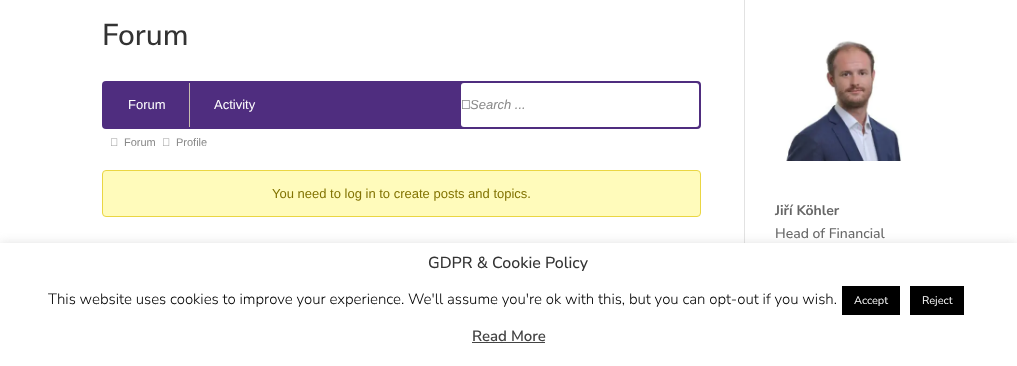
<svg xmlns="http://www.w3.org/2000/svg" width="1017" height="366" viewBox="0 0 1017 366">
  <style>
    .t1 { font: 500 30px Nunito Sans; fill: #333; }
    .t2 { font: 13px Liberation Sans; fill: #fff; }
    .t3 { font: italic 13px Liberation Sans; fill: #888; }
    .t4 { font: 11px Liberation Sans; fill: #888; }
    .t5 { font: 13px Liberation Sans; fill: #827302; }
    .t6 { font: bold 14px Nunito Sans; fill: #666; }
    .t7 { font: 500 14px Nunito Sans; fill: #666; }
    .t8 { font: 500 16px Nunito Sans; fill: #333; }
    .t9 { font: 300 15px Nunito Sans; fill: #000; }
    .t10 { font: 11px Nunito Sans; fill: #fff; }
    .t11 { font: 600 15px Nunito Sans; fill: #444; }
  </style>
  <rect width="100%" height="100%" fill="#fff"/>
  <rect x="744" y="0" width="1" height="243" fill="#e2e2e2"/>
  <text x="102" y="45" class="t1">Forum</text>
  <rect x="102" y="81" width="599" height="48" rx="4" fill="#4f2d7f"/>
  <text x="128" y="109" class="t2">Forum</text>
  <rect x="189" y="83" width="1" height="44" fill="#c8beaf"/>
  <text x="214" y="109" class="t2">Activity</text>
  <rect x="461" y="83" width="238" height="44" rx="3" fill="#fff"/>
  <image x="462" y="100" width="8" height="9" href="images/1.png"/>
  <text x="470" y="109" class="t3">Search ...</text>
  <image x="111" y="138" width="7" height="8" href="images/2.png"/>
  <text x="124" y="146" class="t4">Forum</text>
  <image x="163" y="138" width="7" height="8" href="images/2.png"/>
  <text x="176" y="146" class="t4">Profile</text>
  <rect x="102.5" y="170.5" width="598" height="46" rx="3.5" fill="#fffbbb" stroke="#ead643"/>
  <text x="272" y="198" class="t5">You need to log in to create posts and topics.</text>
  <image x="786" y="40" width="116" height="121" href="images/3.png"/>
  <text x="775" y="215" class="t6">Jiří Köhler</text>
  <text x="775" y="238" class="t7">Head of Financial</text>
  <rect x="0" y="242" width="1017" height="123" fill="#acabab4d" filter="blur(5px)"/>
  <rect x="0" y="243" width="1017" height="123" fill="#fff"/>
  <text x="428" y="268" class="t8">GDPR &amp; Cookie Policy</text>
  <text x="48" y="304" class="t9">This website uses cookies to improve your experience. We'll assume you're ok with this, but you can opt-out if you wish.</text>
  <rect x="842" y="286" width="58" height="29" fill="#000"/>
  <text x="854" y="304" class="t10">Accept</text>
  <rect x="910" y="286" width="54" height="29" fill="#000"/>
  <text x="922" y="304" class="t10">Reject</text>
  <text x="472" y="341" class="t11">Read More</text>
  <rect x="472" y="342" width="73" height="1" fill="#444"/>
</svg>
